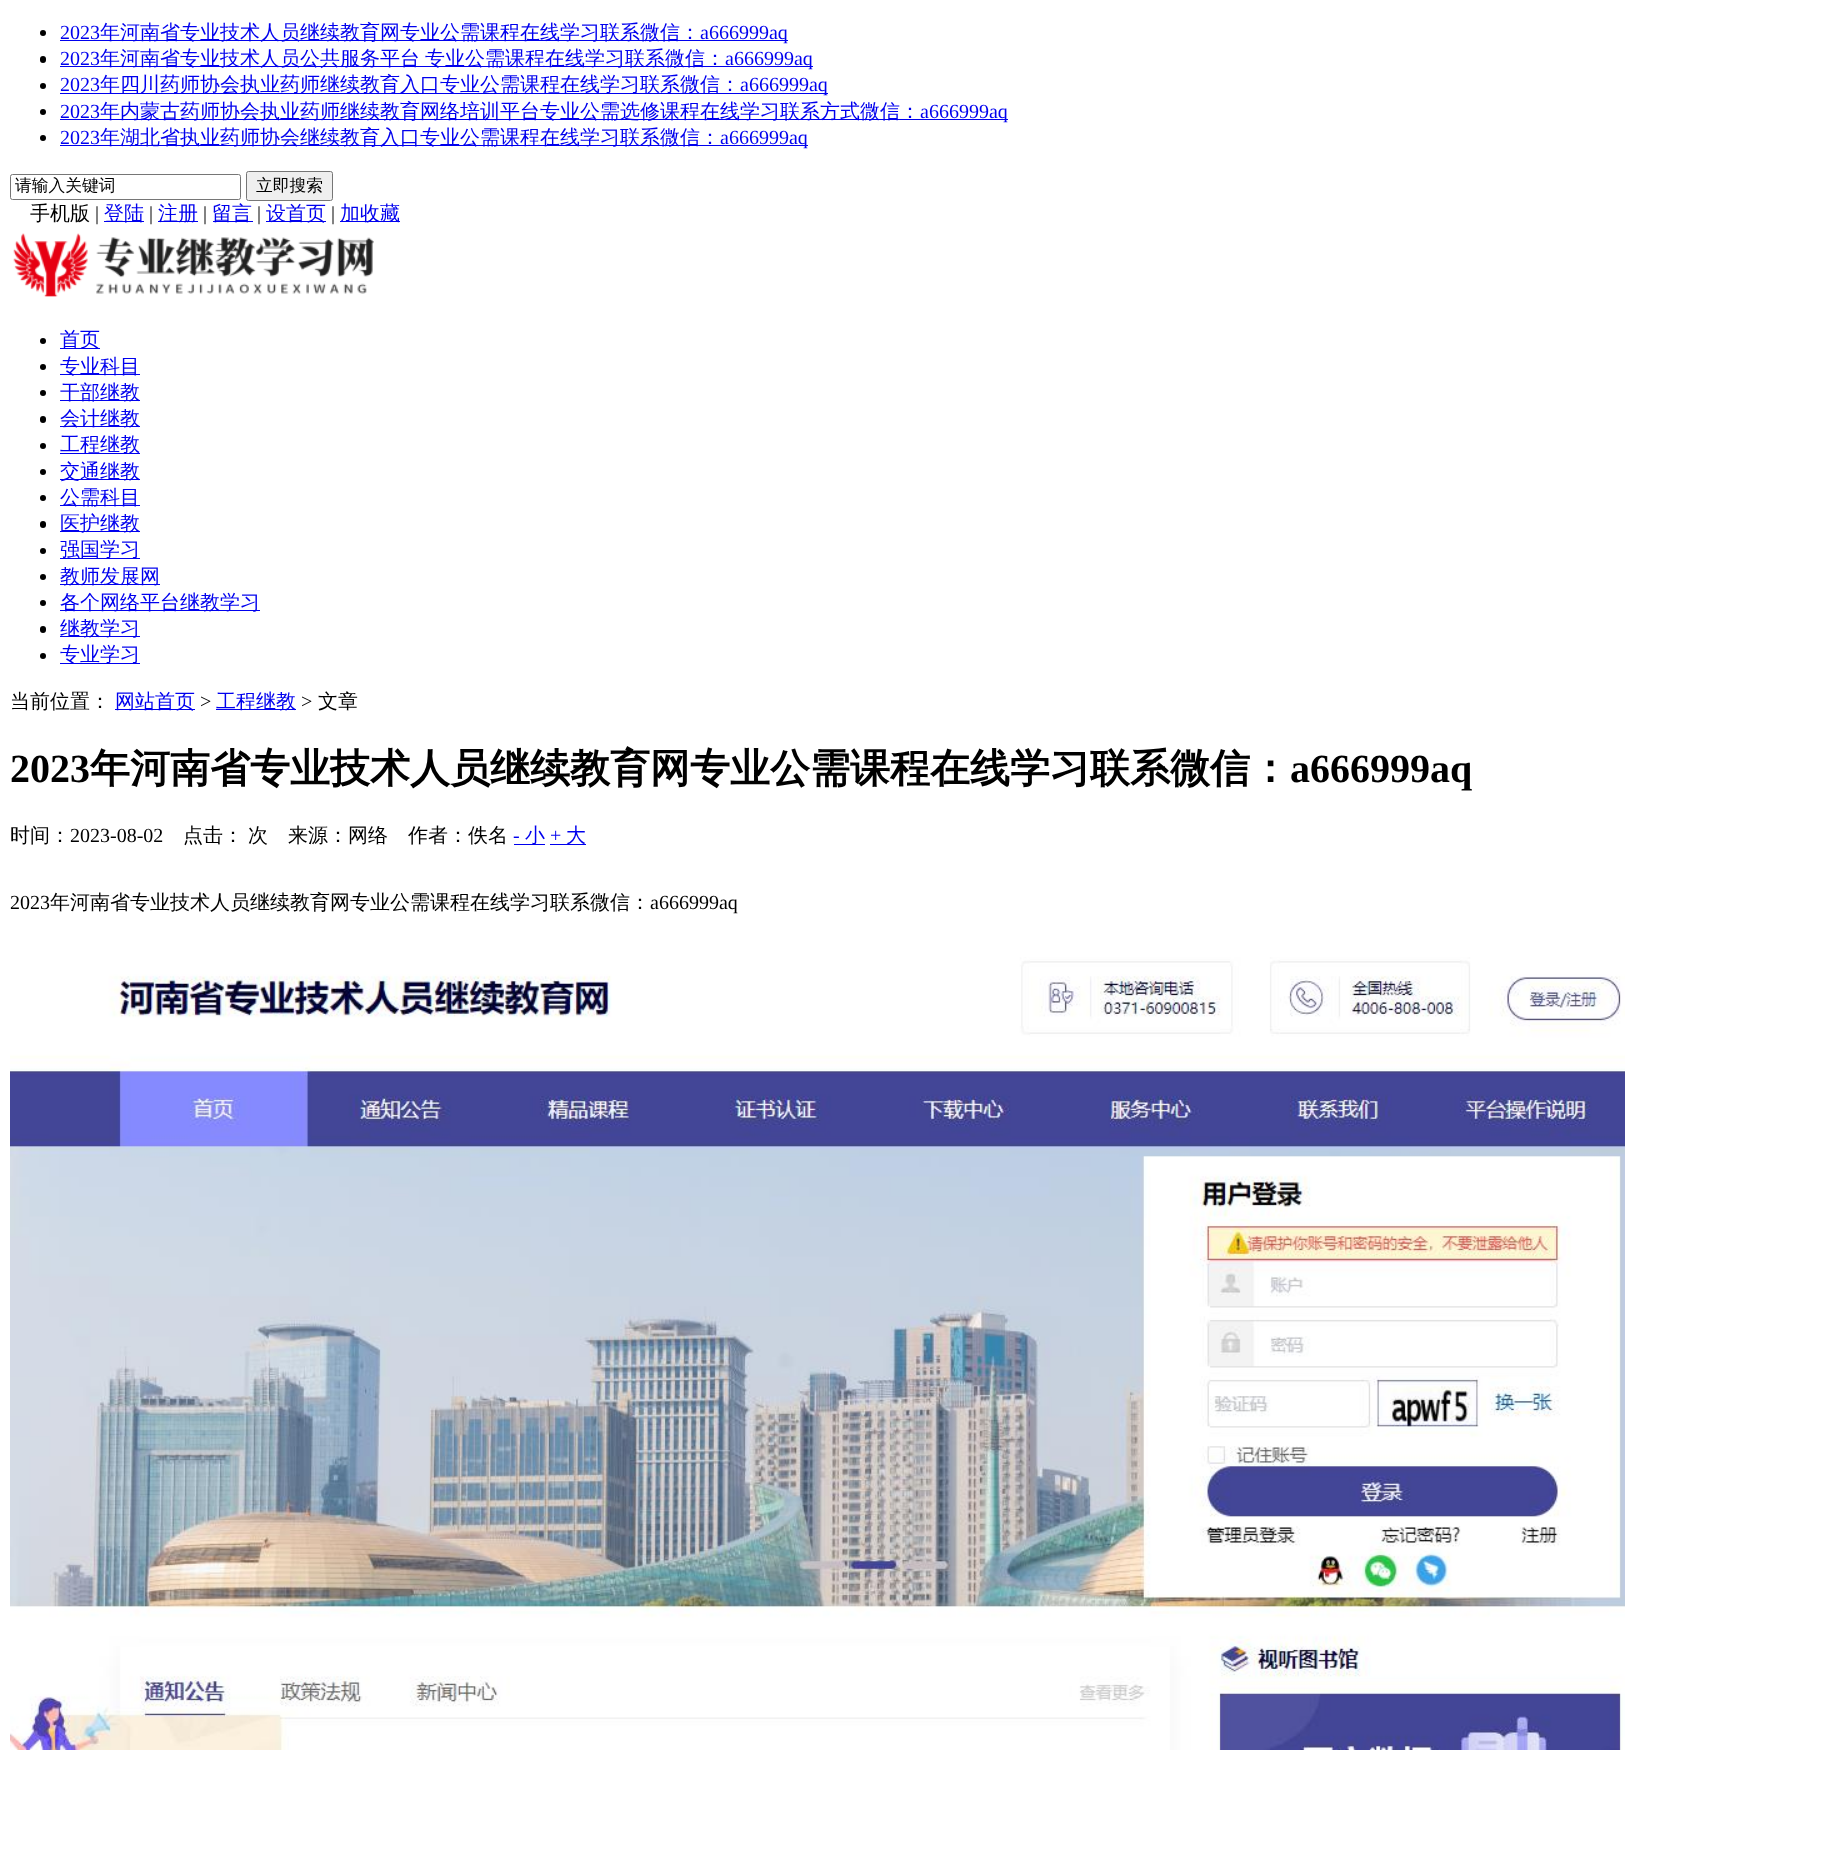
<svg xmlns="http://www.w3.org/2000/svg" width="1831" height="1850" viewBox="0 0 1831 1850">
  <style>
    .t1 { font: 20px Liberation Serif; fill: #00e; }
    .t2 { font: 500 20px WenQuanYi Zen Hei; fill: #00e; }
    .t3 { font: 500 16.75px WenQuanYi Zen Hei; fill: #000; }
    .t4 { font: 500 20px WenQuanYi Zen Hei; fill: #000; }
    .t5 { font: 20px Liberation Serif; fill: #000; }
    .t6 { font: bold 40px Liberation Serif; fill: #000; }
    .t7 { font: bold 40px WenQuanYi Zen Hei; fill: #000; }
  </style>
  <rect width="100%" height="100%" fill="#fff"/>
  <circle cx="43" cy="33" r="3" fill="#000"/>
  <text x="60" y="39" class="t1">2023</text>
  <rect x="60" y="40" width="728" height="1" fill="#00e"/>
  <text x="100" y="39" class="t2">年河南省专业技术人员继续教育网专业公需课程在线学习联系微信：</text>
  <text x="700" y="39" class="t1">a666999aq</text>
  <rect x="40" y="56" width="6" height="7" rx="3" fill="#000"/>
  <text x="60" y="65" class="t1">2023</text>
  <rect x="60" y="66" width="753" height="1" fill="#00e"/>
  <text x="100" y="65" word-spacing="-1" class="t2">年河南省专业技术人员公共服务平台 专业公需课程在线学习联系微信：</text>
  <text x="725" y="65" class="t1">a666999aq</text>
  <circle cx="43" cy="86" r="3" fill="#000"/>
  <text x="60" y="91" class="t1">2023</text>
  <rect x="60" y="93" width="768" height="1" fill="#00e"/>
  <text x="100" y="91" class="t2">年四川药师协会执业药师继续教育入口专业公需课程在线学习联系微信：</text>
  <text x="740" y="91" class="t1">a666999aq</text>
  <circle cx="43" cy="112" r="3" fill="#000"/>
  <text x="60" y="118" class="t1">2023</text>
  <rect x="60" y="119" width="948" height="1" fill="#00e"/>
  <text x="100" y="118" class="t2">年内蒙古药师协会执业药师继续教育网络培训平台专业公需选修课程在线学习联系方式微信：</text>
  <text x="920" y="118" class="t1">a666999aq</text>
  <circle cx="43" cy="138" r="3" fill="#000"/>
  <text x="60" y="144" class="t1">2023</text>
  <rect x="60" y="145" width="748" height="1" fill="#00e"/>
  <text x="100" y="144" class="t2">年湖北省执业药师协会继续教育入口专业公需课程在线学习联系微信：</text>
  <text x="720" y="144" class="t1">a666999aq</text>
  <rect x="10.5" y="174.5" width="230" height="25" rx="2" fill="none" stroke="#767676"/>
  <text x="15" y="191" class="t3">请输入关键词</text>
  <rect x="246.5" y="171.5" width="86" height="29" rx="2" fill="#efefef" stroke="#767676"/>
  <text x="256" y="191" class="t3">立即搜索</text>
  <text x="30" y="220" class="t4">手机版</text>
  <text x="95" y="220" class="t5">|</text>
  <rect x="104" y="221" width="40" height="1" fill="#00e"/>
  <text x="104" y="220" class="t2">登陆</text>
  <text x="149" y="220" class="t5">|</text>
  <rect x="158" y="221" width="40" height="1" fill="#00e"/>
  <text x="158" y="220" class="t2">注册</text>
  <text x="203" y="220" class="t5">|</text>
  <rect x="213" y="221" width="40" height="1" fill="#00e"/>
  <text x="212" y="220" class="t2">留言</text>
  <text x="257" y="220" class="t5">|</text>
  <rect x="266" y="221" width="60" height="1" fill="#00e"/>
  <text x="266" y="220" class="t2">设首页</text>
  <text x="331" y="220" class="t5">|</text>
  <rect x="340" y="221" width="60" height="1" fill="#00e"/>
  <text x="340" y="220" class="t2">加收藏</text>
  <image x="13" y="233" width="361" height="64" href="images/1.png"/>
  <circle cx="43" cy="341" r="3" fill="#000"/>
  <rect x="60" y="348" width="40" height="1" fill="#00e"/>
  <text x="60" y="346" class="t2">首页</text>
  <circle cx="43" cy="367" r="3" fill="#000"/>
  <rect x="60" y="374" width="80" height="1" fill="#00e"/>
  <text x="60" y="373" class="t2">专业科目</text>
  <circle cx="43" cy="393" r="3" fill="#000"/>
  <rect x="60" y="400" width="80" height="1" fill="#00e"/>
  <text x="60" y="399" class="t2">干部继教</text>
  <rect x="40" y="416" width="6" height="7" rx="3" fill="#000"/>
  <rect x="60" y="426" width="80" height="1" fill="#00e"/>
  <text x="60" y="425" class="t2">会计继教</text>
  <circle cx="43" cy="446" r="3" fill="#000"/>
  <rect x="60" y="453" width="80" height="1" fill="#00e"/>
  <text x="60" y="451" class="t2">工程继教</text>
  <circle cx="43" cy="472" r="3" fill="#000"/>
  <rect x="60" y="479" width="80" height="1" fill="#00e"/>
  <text x="60" y="478" class="t2">交通继教</text>
  <circle cx="43" cy="498" r="3" fill="#000"/>
  <rect x="60" y="505" width="80" height="1" fill="#00e"/>
  <text x="60" y="504" class="t2">公需科目</text>
  <rect x="40" y="521" width="6" height="7" rx="3" fill="#000"/>
  <rect x="60" y="531" width="80" height="1" fill="#00e"/>
  <text x="60" y="530" class="t2">医护继教</text>
  <circle cx="43" cy="551" r="3" fill="#000"/>
  <rect x="60" y="558" width="80" height="1" fill="#00e"/>
  <text x="60" y="556" class="t2">强国学习</text>
  <circle cx="43" cy="577" r="3" fill="#000"/>
  <rect x="60" y="584" width="100" height="1" fill="#00e"/>
  <text x="60" y="583" class="t2">教师发展网</text>
  <circle cx="43" cy="603" r="3" fill="#000"/>
  <rect x="60" y="610" width="200" height="1" fill="#00e"/>
  <text x="60" y="609" class="t2">各个网络平台继教学习</text>
  <rect x="40" y="626" width="6" height="7" rx="3" fill="#000"/>
  <rect x="60" y="636" width="80" height="1" fill="#00e"/>
  <text x="60" y="635" class="t2">继教学习</text>
  <circle cx="43" cy="656" r="3" fill="#000"/>
  <rect x="60" y="663" width="80" height="1" fill="#00e"/>
  <text x="60" y="661" class="t2">专业学习</text>
  <text x="10" y="708" class="t4">当前位置：</text>
  <rect x="115" y="709" width="80" height="1" fill="#00e"/>
  <text x="115" y="708" class="t2">网站首页</text>
  <text x="200" y="708" class="t5">&gt;</text>
  <rect x="216" y="709" width="80" height="1" fill="#00e"/>
  <text x="216" y="708" class="t2">工程继教</text>
  <text x="301" y="708" class="t5">&gt;</text>
  <text x="318" y="708" class="t4">文章</text>
  <text x="10" y="782" class="t6">2023</text>
  <text x="90" y="782" class="t7">年河南省专业技术人员继续教育网专业公需课程在线学习联系微信：</text>
  <text x="1290" y="782" class="t6">a666999aq</text>
  <text x="10" y="842" class="t4">时间：</text>
  <text x="70" y="842" class="t5">2023-08-02</text>
  <text x="183" y="842" class="t4">点击：</text>
  <text x="248" y="842" class="t4">次</text>
  <text x="288" y="842" class="t4">来源：网络</text>
  <text x="408" y="842" class="t4">作者：佚名</text>
  <text x="513" y="842" class="t1">-</text>
  <rect x="514" y="844" width="31" height="1" fill="#00e"/>
  <text x="525" y="842" class="t2">小</text>
  <text x="550" y="842" class="t1">+</text>
  <rect x="550" y="844" width="36" height="1" fill="#00e"/>
  <text x="566" y="842" class="t2">大</text>
  <text x="10" y="909" class="t5">2023</text>
  <text x="50" y="909" class="t4">年河南省专业技术人员继续教育网专业公需课程在线学习联系微信：</text>
  <text x="650" y="909" class="t5">a666999aq</text>
  <image x="10" y="957" width="1615" height="793" href="images/2.png"/>
</svg>
